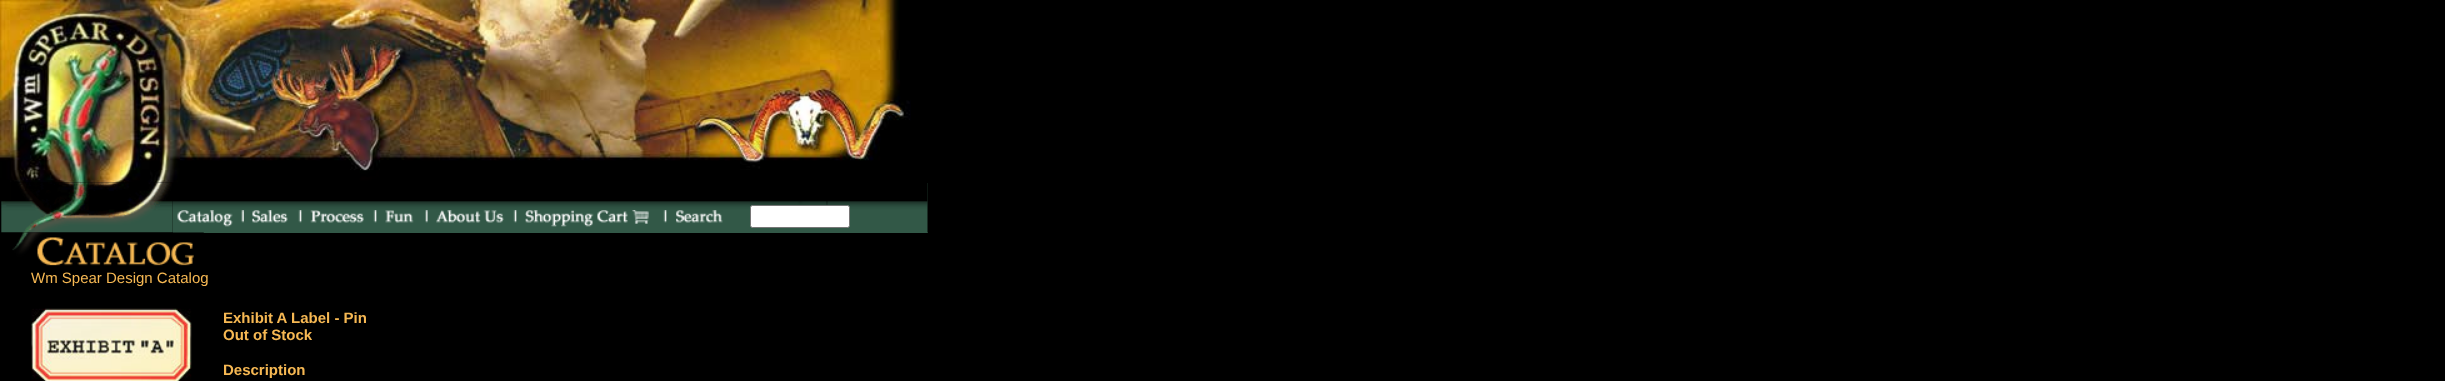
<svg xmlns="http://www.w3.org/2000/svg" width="2445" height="381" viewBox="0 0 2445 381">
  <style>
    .t1 { font: 15px Liberation Sans; fill: #f6b853; }
    .t2 { font: bold 15px Liberation Sans; fill: #f6b853; }
  </style>
  <rect width="100%" height="100%" fill="#000"/>
  <image x="0" y="0" width="911" height="183" href="images/1.png"/>
  <image x="1" y="182" width="172" height="51" href="images/2.png"/>
  <rect x="173" y="183" width="755" height="50" fill="#325847"/>
  <image x="172" y="183" width="756" height="27" href="images/3.png"/>
  <image x="172" y="210" width="61" height="23" href="images/4.png"/>
  <image x="241" y="210" width="3" height="13" href="images/5.png"/>
  <image x="252" y="210" width="36" height="13" href="images/6.png"/>
  <image x="298" y="210" width="4" height="13" href="images/7.png"/>
  <image x="310" y="210" width="54" height="13" href="images/8.png"/>
  <image x="373" y="210" width="4" height="13" href="images/7.png"/>
  <image x="385" y="210" width="29" height="13" href="images/9.png"/>
  <image x="425" y="210" width="3" height="13" href="images/10.png"/>
  <image x="436" y="210" width="68" height="13" href="images/11.png"/>
  <image x="513" y="210" width="4" height="13" href="images/7.png"/>
  <image x="525" y="210" width="124" height="17" href="images/12.png"/>
  <image x="663" y="210" width="4" height="13" href="images/7.png"/>
  <image x="676" y="210" width="47" height="13" href="images/13.png"/>
  <image x="927" y="183" width="1" height="50" href="images/14.png"/>
  <image x="1" y="232" width="203" height="34" href="images/15.png"/>
  <rect x="750.5" y="205.5" width="99" height="22" rx="2" fill="#fff" stroke="#767676"/>
  <text x="31" y="283" class="t1">Wm Spear Design Catalog</text>
  <image x="31" y="308" width="161" height="73" href="images/16.png"/>
  <text x="223" y="323" class="t2">Exhibit A Label - Pin</text>
  <text x="223" y="340" class="t2">Out of Stock</text>
  <text x="223" y="375" class="t2">Description</text>
</svg>
